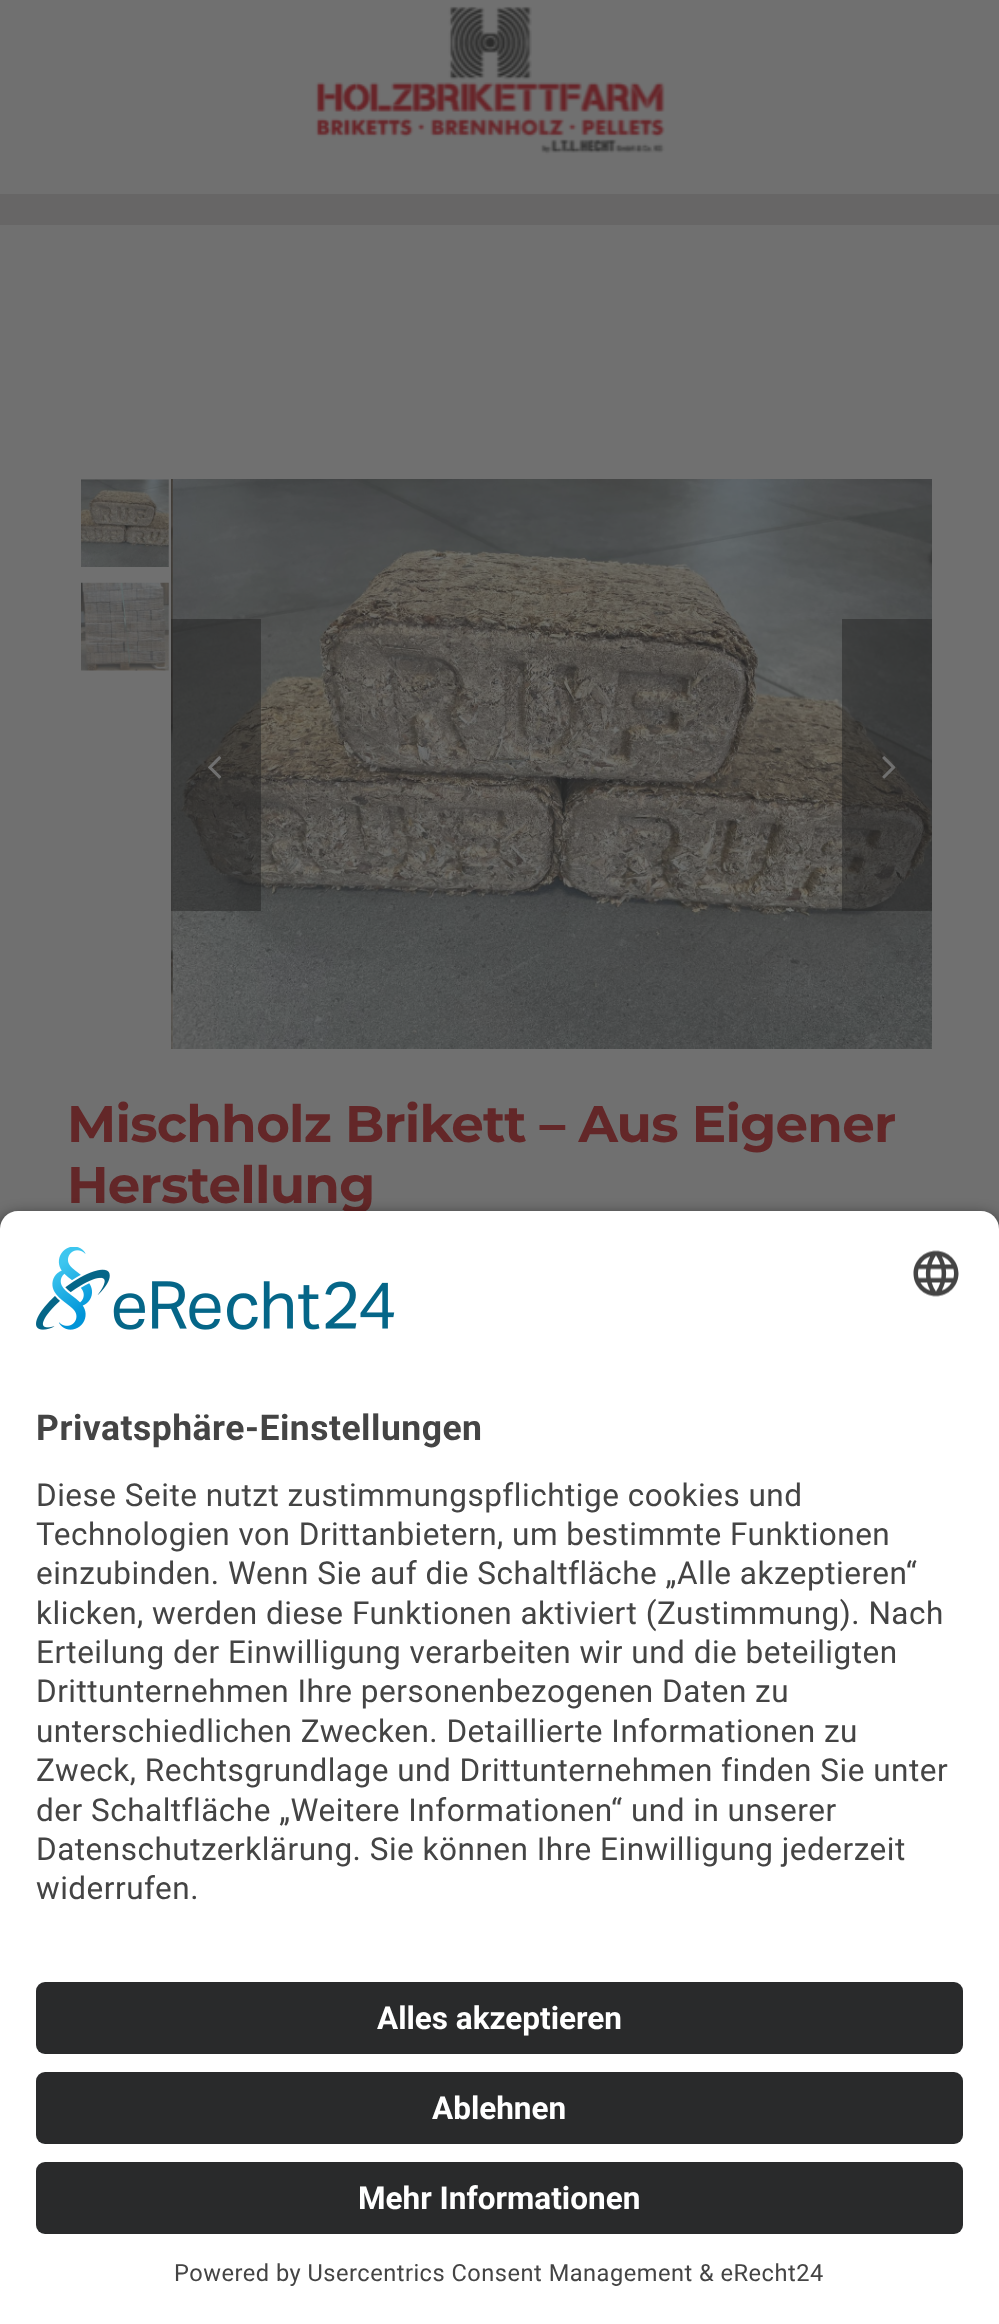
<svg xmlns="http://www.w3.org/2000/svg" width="999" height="2324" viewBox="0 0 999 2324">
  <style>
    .t1 { font: bold 51.5px Montserrat; letter-spacing: -0.75px; fill: #632728; }
    .t2 { font: bold 35.5px Roboto; letter-spacing: 0.5px; fill: #444; }
    .t3 { font: 31.5px Roboto; letter-spacing: 0.5px; fill: #444; }
    .t4 { font: bold 31.5px Roboto; fill: #fff; }
    .t5 { font: 23.6px Roboto; letter-spacing: 0.5px; fill: #444; }
  </style>
  <rect width="100%" height="100%" fill="#707070"/>
  <image x="315" y="6" width="350" height="149" href="images/1.png"/>
  <rect x="0" y="194" width="999" height="31" fill="#676666"/>
  <image x="81" y="479" width="88" height="88" href="images/2.png"/>
  <image x="81" y="582" width="88" height="89" href="images/3.png"/>
  <image x="171" y="479" width="2" height="570" href="images/4.png"/>
  <image x="173" y="479" width="759" height="570" href="images/5.png"/>
  <rect x="171" y="619" width="90" height="292" fill="#24242480"/>
  <image x="208" y="756" width="14" height="23" href="images/6.png"/>
  <rect x="842" y="619" width="90" height="292" fill="#24242480"/>
  <image x="882" y="756" width="14" height="23" href="images/7.png"/>
  <text x="67" y="1142" class="t1">Mischholz Brikett – Aus Eigener</text>
  <text x="67" y="1203" class="t1">Herstellung</text>
  <rect x="0" y="1217" width="999" height="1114" rx="18" fill="#000000cc" filter="blur(8px)"/>
  <path d="M18 1211H981C991 1211 999 1219 999 1229V1955H0V1229C0 1219 8 1211 18 1211Z" fill="#fff"/>
  <image x="36" y="1247" width="359" height="83" href="images/8.png"/>
  <image x="913" y="1250" width="46" height="47" href="images/9.png"/>
  <text x="36" y="1440" class="t2">Privatsphäre-Einstellungen</text>
  <text x="36" y="1506" class="t3">Diese Seite nutzt zustimmungspflichtige cookies und</text>
  <text x="36" y="1545" class="t3">Technologien von Drittanbietern, um bestimmte Funktionen</text>
  <text x="36" y="1584" class="t3">einzubinden. Wenn Sie auf die Schaltfläche „Alle akzeptieren“</text>
  <text x="36" y="1624" class="t3">klicken, werden diese Funktionen aktiviert (Zustimmung). Nach</text>
  <text x="36" y="1663" class="t3">Erteilung der Einwilligung verarbeiten wir und die beteiligten</text>
  <text x="36" y="1702" class="t3">Drittunternehmen Ihre personenbezogenen Daten zu</text>
  <text x="36" y="1742" class="t3">unterschiedlichen Zwecken. Detaillierte Informationen zu</text>
  <text x="36" y="1781" class="t3">Zweck, Rechtsgrundlage und Drittunternehmen finden Sie unter</text>
  <text x="36" y="1821" class="t3">der Schaltfläche „Weitere Informationen“ und in unserer</text>
  <text x="36" y="1860" class="t3">Datenschutzerklärung. Sie können Ihre Einwilligung jederzeit</text>
  <text x="36" y="1899" class="t3">widerrufen.</text>
  <rect x="0" y="1955" width="999" height="369" fill="#fff"/>
  <rect x="36" y="1982" width="927" height="72" rx="9" fill="#292a2b"/>
  <text x="377" y="2029" class="t4">Alles akzeptieren</text>
  <rect x="36" y="2072" width="927" height="72" rx="9" fill="#292a2b"/>
  <text x="432" y="2119" class="t4">Ablehnen</text>
  <rect x="36" y="2162" width="927" height="72" rx="9" fill="#292a2b"/>
  <text x="358" y="2209" class="t4">Mehr Informationen</text>
  <text x="174" y="2281" class="t5">Powered by Usercentrics Consent Management &amp; eRecht24</text>
</svg>
